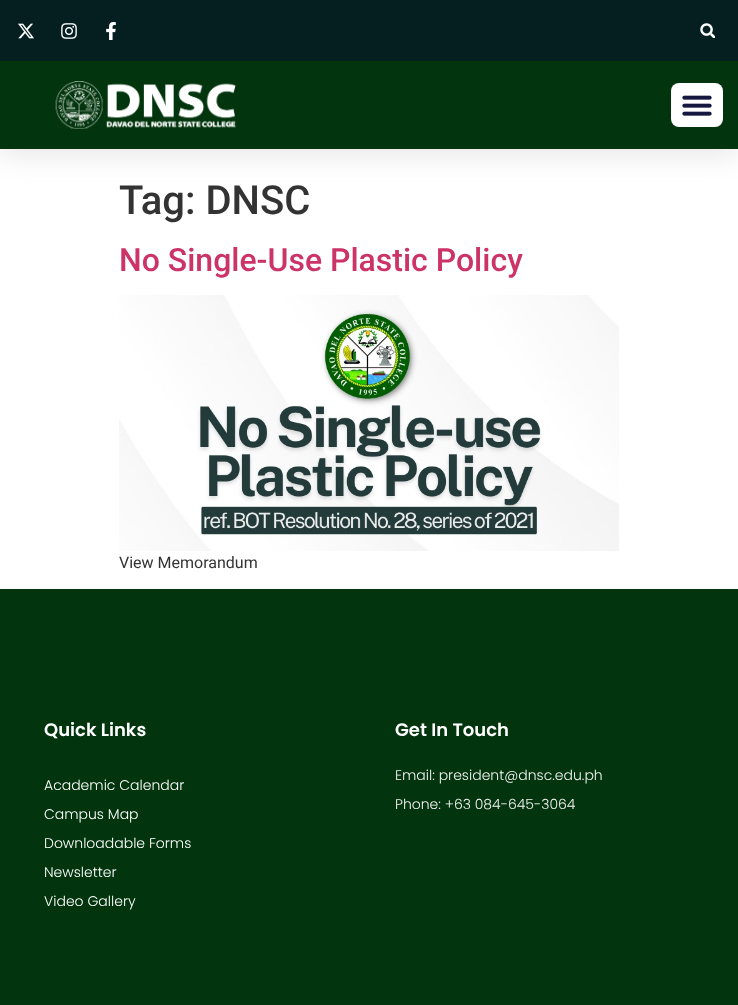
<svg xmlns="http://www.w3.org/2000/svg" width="738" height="1005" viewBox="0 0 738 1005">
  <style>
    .t1 { font: 500 40px Roboto; fill: #333; }
    .t2 { font: 500 32px Roboto; fill: #c36; }
    .t3 { font: 16px Roboto; fill: #333; }
    .t4 { font: 600 18px Poppins; fill: #fff; }
    .t5 { font: 300 14px Poppins; fill: #fff; }
    .t6 { font: 300 14px Poppins; fill: #f3f3f3; }
  </style>
  <rect width="100%" height="100%" fill="#fff"/>
  <rect x="0" y="5" width="738" height="149" fill="#0000001a" filter="blur(15px)"/>
  <rect x="0" y="0" width="738" height="61" fill="#051f20"/>
  <image x="18" y="23" width="16" height="16" href="images/1.png"/>
  <image x="61" y="23" width="16" height="16" href="images/2.png"/>
  <image x="106" y="22" width="10" height="18" href="images/3.png"/>
  <image x="700" y="23" width="15" height="15" href="images/4.png"/>
  <rect x="0" y="61" width="738" height="88" fill="#02350d"/>
  <image x="55" y="81" width="181" height="48" href="images/5.png"/>
  <rect x="671" y="83" width="52" height="44" rx="8" fill="#fff"/>
  <image x="682" y="95" width="30" height="21" href="images/6.png"/>
  <text x="119" y="214" class="t1">Tag: DNSC</text>
  <text x="119" y="271" class="t2">No Single-Use Plastic Policy</text>
  <image x="119" y="295" width="500" height="256" href="images/7.png"/>
  <text x="119" y="568" class="t3">View Memorandum</text>
  <rect x="0" y="589" width="738" height="416" fill="#02350d"/>
  <text x="44" y="736" class="t4">Quick Links</text>
  <text x="44" y="790" class="t5">Academic Calendar</text>
  <text x="44" y="819" class="t5">Campus Map</text>
  <text x="44" y="848" class="t5">Downloadable Forms</text>
  <text x="44" y="877" class="t5">Newsletter</text>
  <text x="44" y="906" class="t5">Video Gallery</text>
  <text x="395" y="736" class="t4">Get In Touch</text>
  <text x="395" y="780" class="t6">Email: president@dnsc.edu.ph</text>
  <text x="395" y="809" class="t6">Phone: +63 084-645-3064</text>
</svg>
